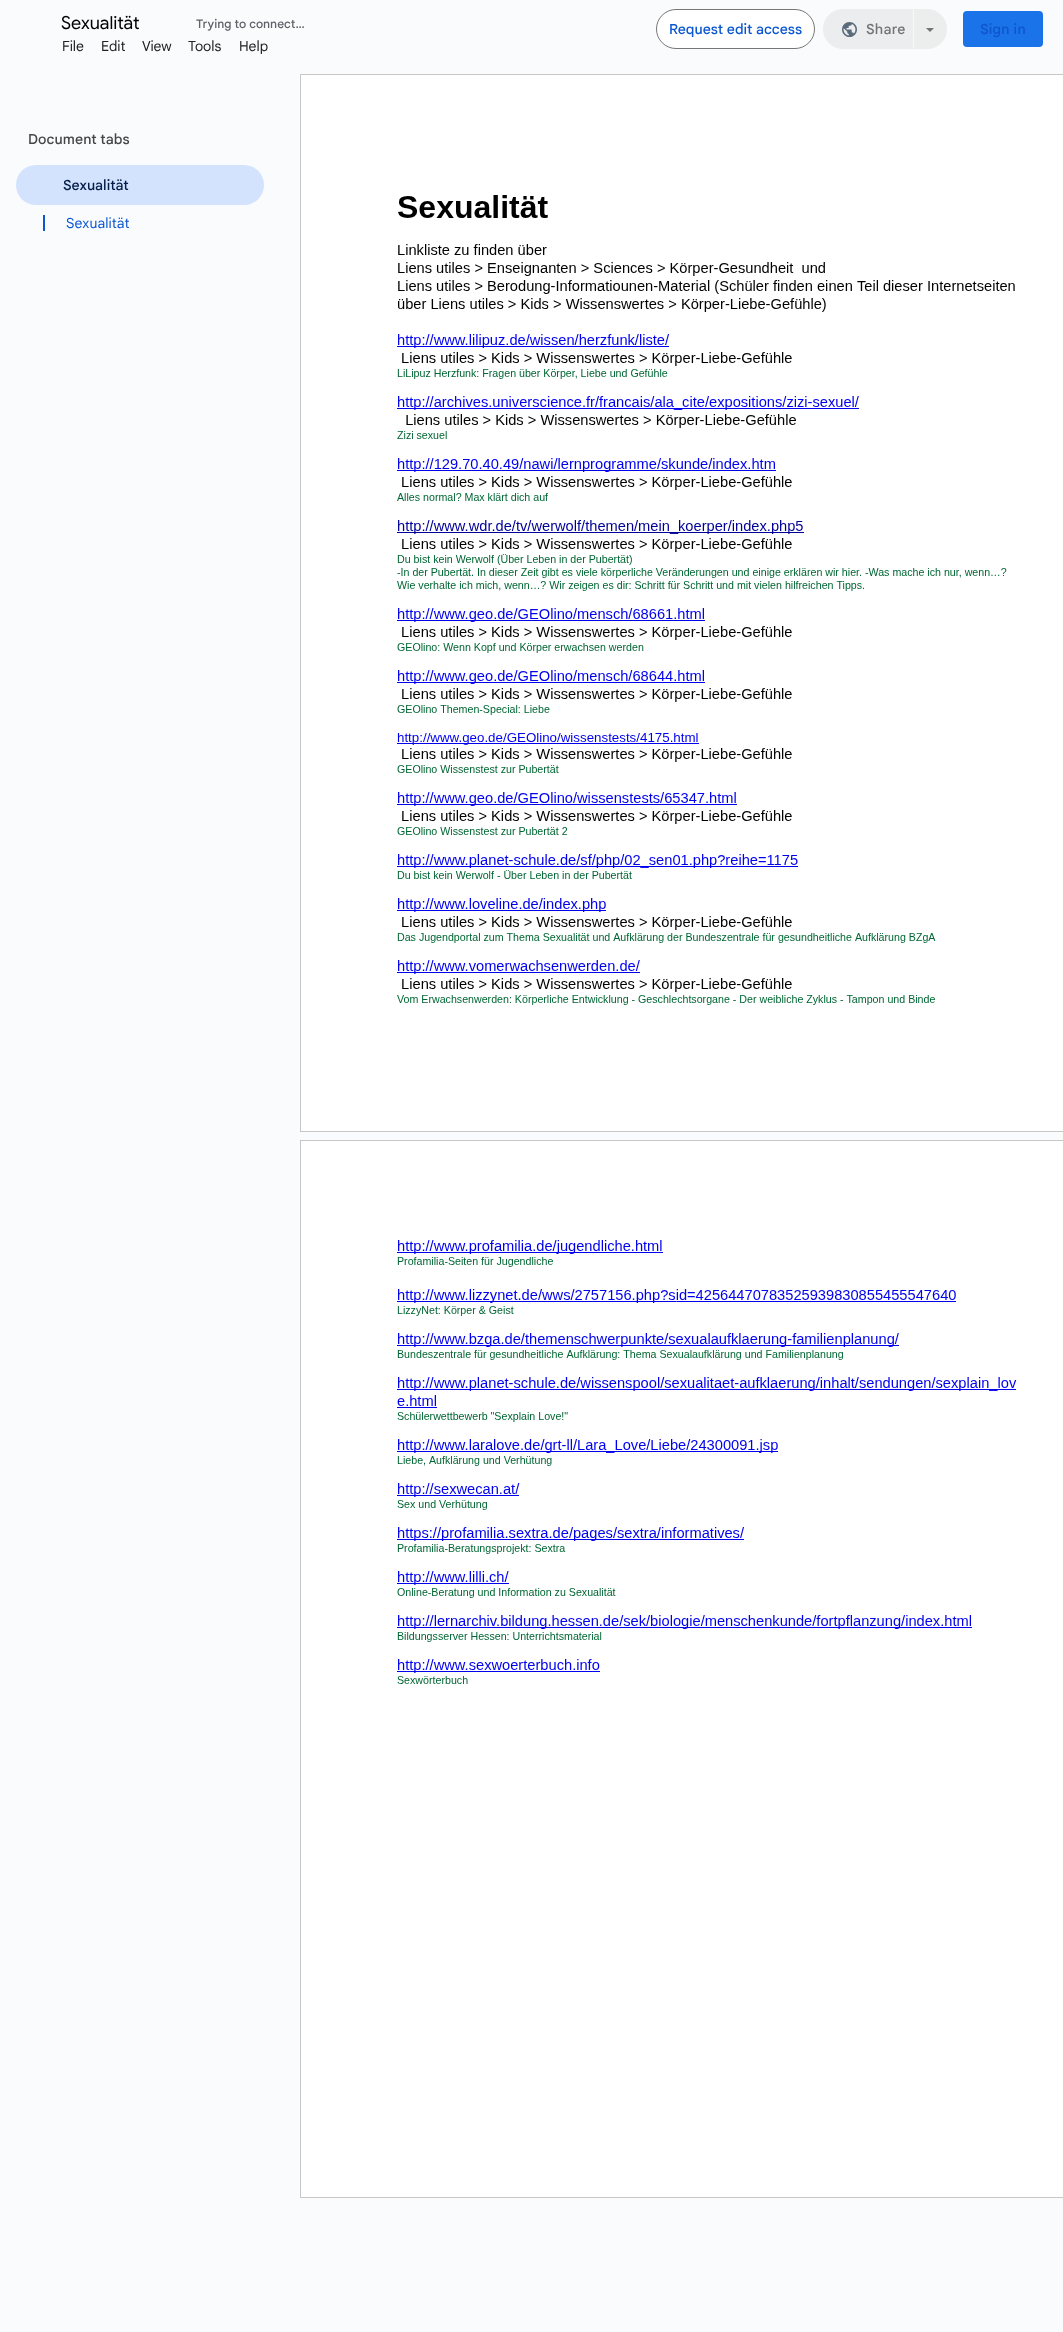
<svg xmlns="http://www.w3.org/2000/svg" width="1063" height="2332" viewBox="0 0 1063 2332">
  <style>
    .t1 { font: 18px 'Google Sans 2'; fill: #000; }
    .t2 { font: 500 12px Google Sans; fill: #5f6368; }
    .t3 { font: 500 14px Google Sans; fill: #0b57d0; }
    .t4 { font: 500 14px Google Sans; letter-spacing: 0.25px; fill: #727373; }
    .t5 { font: 500 14px Google Sans; letter-spacing: 0.25px; fill: #15c; }
    .t6 { font: 14px Google Sans; fill: #202124; }
    .t7 { font: 500 14px Google Sans; letter-spacing: 0.1px; fill: #444746; }
    .t8 { font: 500 14px Google Sans; fill: #041e49; }
    .t9 { font: 14px Google Sans; letter-spacing: 0.1px; fill: #0b57d0; }
  </style>
  <rect width="100%" height="100%" fill="#f9fbfd"/>
  <text x="61" y="29" class="t1">Sexualität</text>
  <text x="196" y="28" class="t2">Trying to connect…</text>
  <rect x="656.5" y="9.5" width="158" height="39" rx="19.5" fill="#fff" stroke="#747775"/>
  <text x="669" y="34" class="t3">Request edit access</text>
  <path d="M843 9H914V49H843C832 49 823 40 823 29C823 18 832 9 843 9Z" fill="#ecedee"/>
  <image x="842" y="22" width="15" height="15" href="images/1.png"/>
  <text x="866" y="34" class="t4">Share</text>
  <path d="M913 9H927C938 9 947 18 947 29C947 40 938 49 927 49H913Z" fill="#e4e4e49e"/>
  <path d="M914 10L913 9V49L914 48Z" fill="#f8f8f9"/>
  <path d="M926 28H934L930 32Z" fill="#727373"/>
  <rect x="963" y="11" width="80" height="36" rx="4" fill="#1a73e8"/>
  <text x="980" y="34" class="t5">Sign in</text>
  <text x="62" y="51" class="t6">File</text>
  <text x="101" y="51" class="t6">Edit</text>
  <text x="142" y="51" class="t6">View</text>
  <text x="188" y="51" class="t6">Tools</text>
  <text x="239" y="51" class="t6">Help</text>
  <text x="28" y="144" class="t7">Document tabs</text>
  <rect x="16" y="165" width="248" height="40" rx="20" fill="#d3e3fd"/>
  <text x="63" y="190" class="t8">Sexualität</text>
  <rect x="43" y="215" width="2" height="16" fill="#0b57d0"/>
  <text x="66" y="228" class="t9">Sexualität</text>
  <rect x="300.5" y="74.5" width="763" height="1057" fill="none" stroke="#c7c7c7"/>
  <image x="301" y="75" width="762" height="1056" href="images/2.png"/>
  <rect x="300.5" y="1140.5" width="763" height="1057" fill="none" stroke="#c7c7c7"/>
  <image x="301" y="1141" width="762" height="1056" href="images/3.png"/>
</svg>
